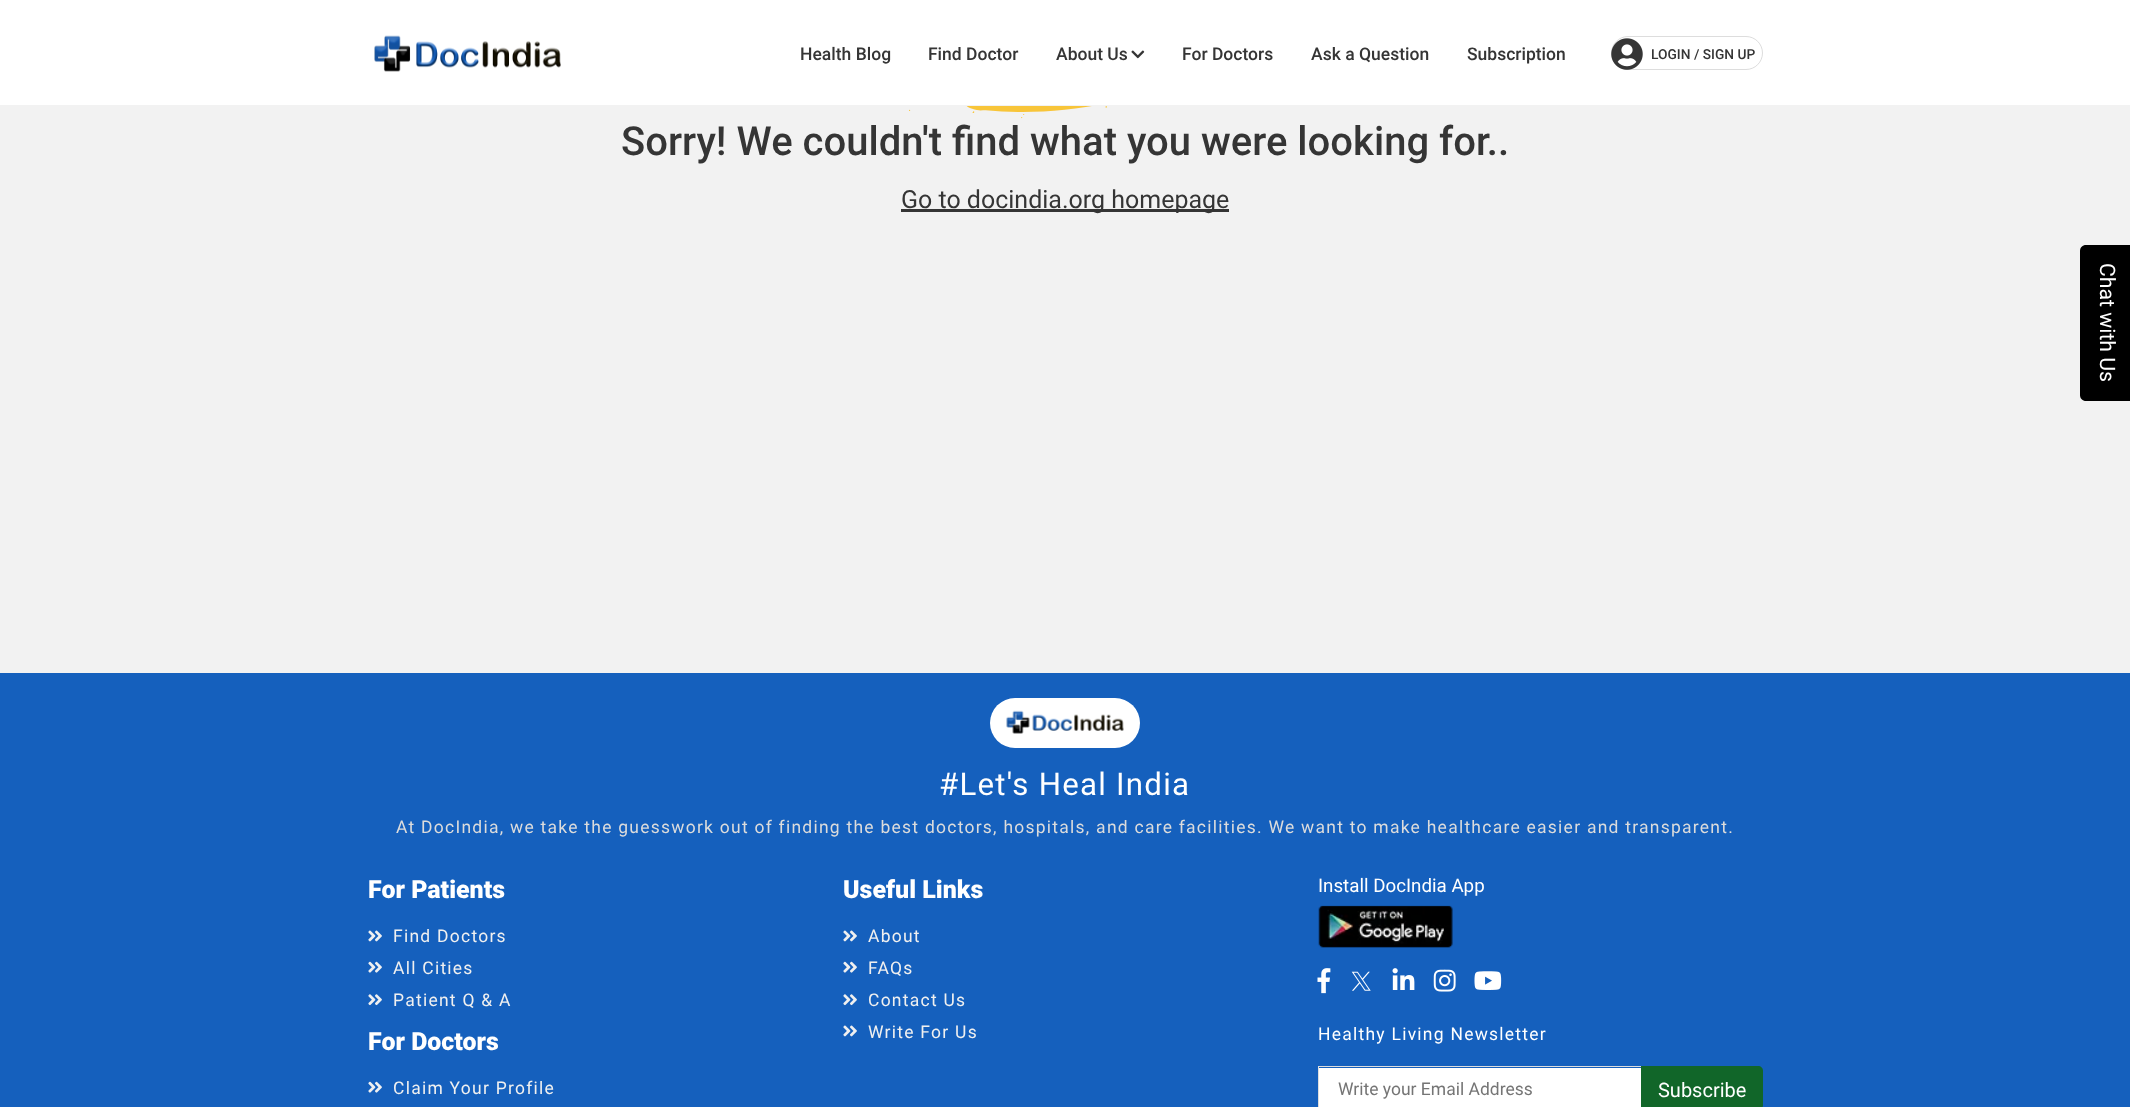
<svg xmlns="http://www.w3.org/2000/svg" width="2130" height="1107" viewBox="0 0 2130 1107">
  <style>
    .t1 { font: 500 17.5px Roboto; fill: #353535; }
    .t2 { font: 500 13.75px Roboto; fill: #353535; }
    .t3 { font: 500 40px Roboto; fill: #353535; }
    .t4 { font: 25px Roboto; fill: #353535; }
    .t5 { font: 21.25px Roboto; fill: #fff; }
    .t6 { font: 31.25px Roboto; letter-spacing: 1.25px; fill: #fff; }
    .t7 { font: 17.5px Roboto; letter-spacing: 1.25px; fill: #dcdcdc; }
    .t8 { font: 900 25px Roboto; fill: #fff; }
    .t9 { font: 17.5px Roboto; letter-spacing: 1.25px; fill: #f0f0f0; }
    .t10 { font: 18.75px Roboto; fill: #fff; }
    .t11 { font: 17.5px Roboto; letter-spacing: 1.25px; fill: #fff; }
    .t12 { font: 17.5px Roboto; fill: #757575; }
    .t13 { font: 20px Roboto; fill: #fff; }
  </style>
  <rect width="100%" height="100%" fill="#f2f2f2"/>
  <rect x="0" y="0" width="2130" height="105" fill="#fff"/>
  <image x="374" y="35" width="187" height="37" href="images/1.png"/>
  <text x="800" y="60" class="t1">Health Blog</text>
  <text x="928" y="60" class="t1">Find Doctor</text>
  <text x="1056" y="60" class="t1">About Us</text>
  <image x="1131" y="50" width="14" height="9" href="images/2.png"/>
  <text x="1182" y="60" class="t1">For Doctors</text>
  <text x="1311" y="60" class="t1">Ask a Question</text>
  <text x="1467" y="60" class="t1">Subscription</text>
  <rect x="1611.5" y="36.5" width="151" height="33" rx="16.5" fill="none" stroke="#ddd"/>
  <image x="1611" y="38" width="32" height="32" href="images/3.png"/>
  <text x="1651" y="59" class="t2">LOGIN / SIGN UP</text>
  <image x="909" y="106" width="198" height="13" href="images/4.png"/>
  <text x="621" y="155" class="t3">Sorry! We couldn't find what you were looking for..</text>
  <rect x="901" y="209" width="328" height="3" fill="#353535"/>
  <text x="901" y="208" class="t4">Go to docindia.org homepage</text>
  <path d="M2086 245H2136V401H2086C2082.5 401 2080 398.5 2080 395V251C2080 247.5 2082.5 245 2086 245Z" fill="#000"/>
  <text x="2100" y="263" transform="rotate(90 2100 263)" class="t5">Chat with Us</text>
  <rect x="0" y="673" width="2130" height="434" fill="#1560bd"/>
  <rect x="990" y="698" width="150" height="50" rx="25" fill="#fff"/>
  <image x="1006" y="710" width="118" height="24" href="images/5.png"/>
  <text x="939" y="795" class="t6">#Let's Heal India</text>
  <text x="396" y="833" class="t7">At DocIndia, we take the guesswork out of finding the best doctors, hospitals, and care facilities. We want to make healthcare easier and transparent.</text>
  <text x="368" y="898" class="t8">For Patients</text>
  <image x="368" y="930" width="14" height="12" href="images/6.png"/>
  <text x="393" y="942" class="t9">Find Doctors</text>
  <image x="368" y="961" width="14" height="12" href="images/7.png"/>
  <text x="393" y="974" class="t9">All Cities</text>
  <image x="368" y="994" width="14" height="12" href="images/8.png"/>
  <text x="393" y="1006" class="t9">Patient Q &amp; A</text>
  <text x="368" y="1050" class="t8">For Doctors</text>
  <image x="368" y="1081" width="14" height="12" href="images/7.png"/>
  <text x="393" y="1094" class="t9">Claim Your Profile</text>
  <text x="843" y="898" class="t8">Useful Links</text>
  <image x="843" y="930" width="14" height="12" href="images/6.png"/>
  <text x="868" y="942" class="t9">About</text>
  <image x="843" y="961" width="14" height="12" href="images/7.png"/>
  <text x="868" y="974" class="t9">FAQs</text>
  <image x="843" y="994" width="14" height="12" href="images/8.png"/>
  <text x="868" y="1006" class="t9">Contact Us</text>
  <image x="843" y="1025" width="14" height="12" href="images/6.png"/>
  <text x="868" y="1038" class="t9">Write For Us</text>
  <text x="1318" y="892" class="t10">Install DocIndia App</text>
  <image x="1318" y="905" width="135" height="43" href="images/9.png"/>
  <image x="1317" y="968" width="14" height="26" href="images/10.png"/>
  <image x="1351" y="971" width="20" height="20" href="images/11.png"/>
  <image x="1392" y="968" width="23" height="22" href="images/12.png"/>
  <image x="1433" y="969" width="23" height="23" href="images/13.png"/>
  <image x="1474" y="971" width="28" height="19" href="images/14.png"/>
  <text x="1318" y="1040" class="t11">Healthy Living Newsletter</text>
  <rect x="1319" y="1068" width="322" height="39" fill="#fff"/>
  <rect x="1318.5" y="1066.5" width="324" height="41" fill="none" stroke="#ddd"/>
  <text x="1338" y="1095" class="t12">Write your Email Address</text>
  <path d="M1641 1066H1758C1761 1066 1763 1068 1763 1071V1105C1763 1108 1761 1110 1758 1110H1641Z" fill="#116629"/>
  <text x="1658" y="1097" class="t13">Subscribe</text>
</svg>
